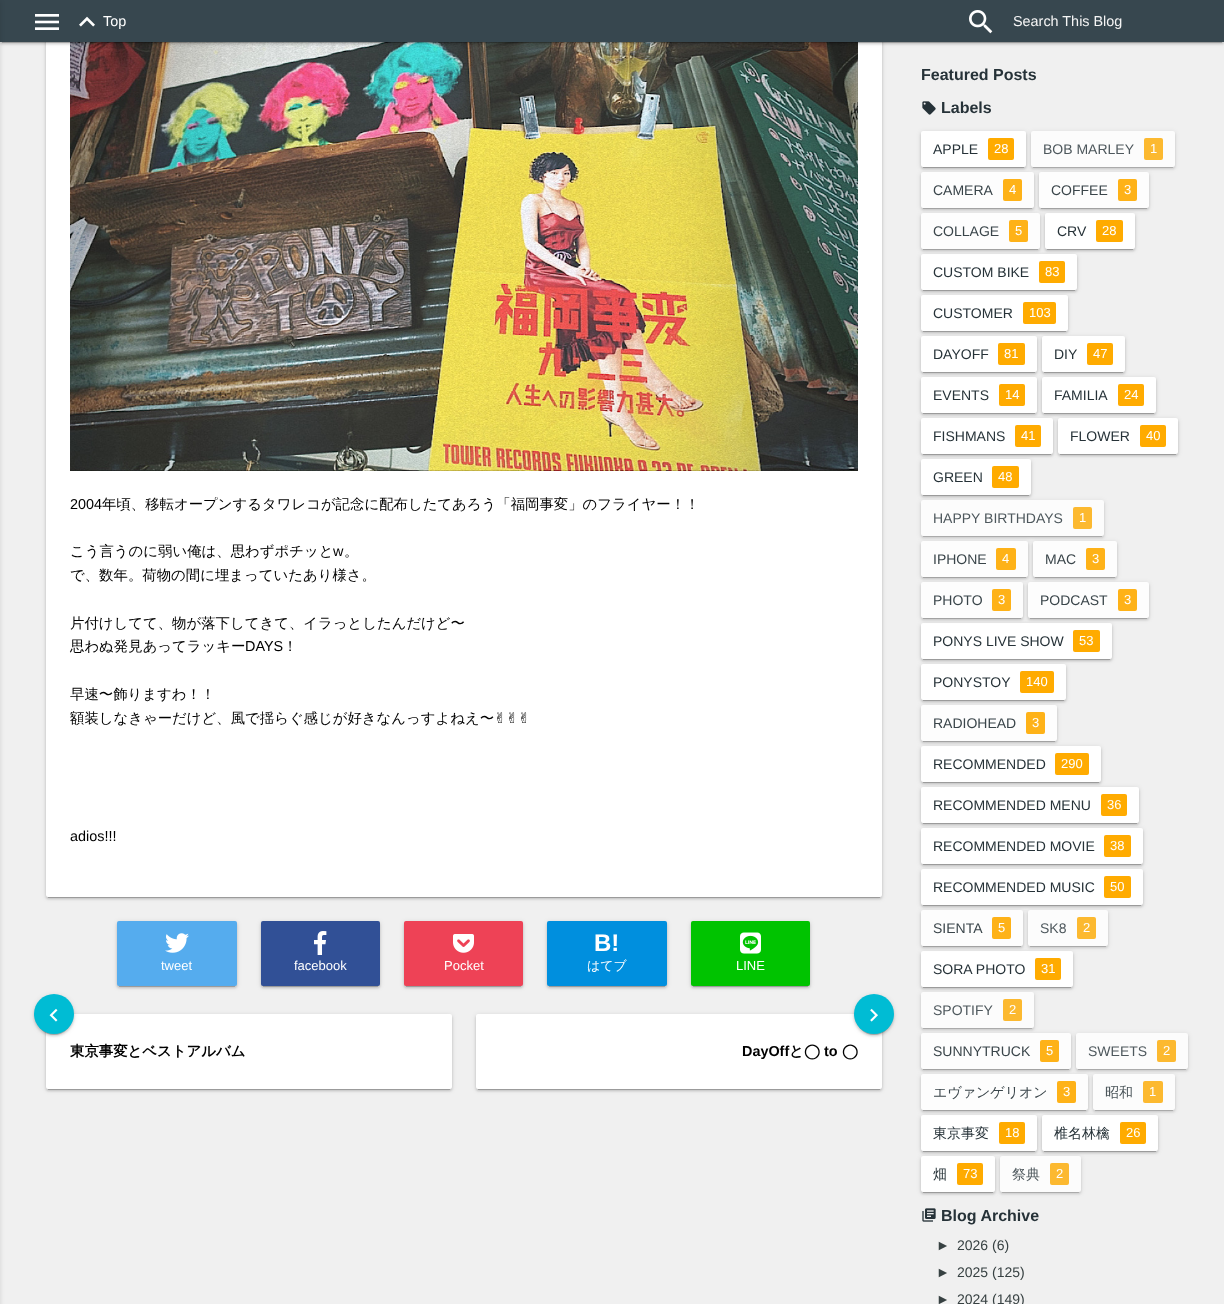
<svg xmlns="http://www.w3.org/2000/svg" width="1224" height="1304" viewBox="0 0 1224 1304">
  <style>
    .t1 { font: 14.4px Liberation Sans; fill: #fff; }
    .t2 { font: 14.4px Liberation Sans; fill: #f5f5f5; }
    .t3 { font: 14.4px Liberation Sans; fill: #000; }
    .t4 { font: 500 14.4px WenQuanYi Zen Hei; fill: #000; }
    .t5 { font: 14.4px DejaVu Sans; fill: #000; }
    .t6 { font: 13px Liberation Sans; fill: #fff; }
    .t7 { font: bold 24px Liberation Sans; fill: #fff; }
    .t8 { font: 500 13px WenQuanYi Zen Hei; fill: #fff; }
    .t9 { font: bold 14.4px WenQuanYi Zen Hei; fill: #000; }
    .t10 { font: bold 14.4px Liberation Sans; fill: #000; }
    .t11 { font: bold 14.4px DejaVu Sans; fill: #000; }
    .t12 { font: bold 16px Liberation Sans; fill: #263238; }
    .t13 { font: 14px Liberation Sans; fill: #263238; }
    .t14 { font: 14px Liberation Sans; fill: #4e585d; }
    .t15 { font: 14px Liberation Sans; fill: #3a454a; }
    .t16 { font: 500 14px WenQuanYi Zen Hei; fill: #3a454a; }
    .t17 { font: 500 14px WenQuanYi Zen Hei; fill: #4e585d; }
    .t18 { font: 500 14px WenQuanYi Zen Hei; fill: #263238; }
    .t19 { font: 14px Liberation Sans; fill: #374142; }
  </style>
  <rect width="100%" height="100%" fill="#f0f0f0"/>
  <rect x="48" y="-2" width="832" height="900" fill="#00000033" filter="blur(0.5px)"/>
  <rect x="46" y="-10" width="836" height="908" rx="2" fill="#0000001f" filter="blur(2.5px)"/>
  <rect x="46" y="-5" width="836" height="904" rx="2" fill="#00000024" filter="blur(1px)"/>
  <rect x="46" y="-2" width="836" height="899" rx="2" fill="#fff"/>
  <image x="70" y="42" width="788" height="429" href="images/4.png"/>
  <rect x="2" y="5" width="1220" height="38" fill="#00000033" filter="blur(0.5px)"/>
  <rect x="0" y="1" width="1224" height="42" fill="#0000001f" filter="blur(2.5px)"/>
  <rect x="0" y="2" width="1224" height="42" fill="#00000024" filter="blur(1px)"/>
  <rect x="0" y="0" width="1224" height="42" fill="#37474f"/>
  <rect x="-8" y="1" width="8" height="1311" fill="#0000001f" filter="blur(2.5px)"/>
  <image x="35" y="14" width="24" height="16" href="images/1.png"/>
  <image x="79" y="16" width="16" height="11" href="images/2.png"/>
  <text x="103" y="26" class="t1">Top</text>
  <image x="969" y="10" width="24" height="24" href="images/3.png"/>
  <text x="1013" y="26" class="t2">Search This Blog</text>
  <text x="70" y="509" class="t3">2004</text>
  <text x="102" y="509" class="t4">年頃、移転オープンするタワレコが記念に配布したてあろう「福岡事変」のフライヤー！！</text>
  <text x="70" y="556" class="t4">こう言うのに弱い俺は、思わずポチッと</text>
  <text x="333" y="556" class="t3">w</text>
  <text x="344" y="556" class="t4">。</text>
  <text x="70" y="580" class="t4">で、数年。荷物の間に埋まっていたあり様さ。</text>
  <text x="70" y="628" class="t4">片付けしてて、物が落下してきて、イラっとしたんだけど〜</text>
  <text x="70" y="651" class="t4">思わぬ発見あってラッキー</text>
  <text x="245" y="651" class="t3">DAYS</text>
  <text x="283" y="651" class="t4">！</text>
  <text x="70" y="699" class="t4">早速〜飾りますわ！！</text>
  <text x="70" y="723" class="t4">額装しなきゃーだけど、風で揺らぐ感じが好きなんっすよねえ〜</text>
  <text x="494" y="723" class="t5">✌︎✌︎✌︎</text>
  <text x="70" y="841" class="t3">adios!!!</text>
  <rect x="119" y="926" width="116" height="61" fill="#00000033" filter="blur(0.5px)"/>
  <rect x="117" y="922" width="120" height="65" rx="2" fill="#0000001f" filter="blur(2.5px)"/>
  <rect x="117" y="923" width="120" height="65" rx="2" fill="#00000024" filter="blur(1px)"/>
  <rect x="117" y="921" width="120" height="65" rx="2" fill="#55acee"/>
  <image x="165" y="933" width="24" height="20" href="images/5.png"/>
  <text x="161" y="970" class="t6">tweet</text>
  <rect x="263" y="926" width="115" height="61" fill="#00000033" filter="blur(0.5px)"/>
  <rect x="261" y="922" width="119" height="65" rx="2" fill="#0000001f" filter="blur(2.5px)"/>
  <rect x="261" y="923" width="119" height="65" rx="2" fill="#00000024" filter="blur(1px)"/>
  <rect x="261" y="921" width="119" height="65" rx="2" fill="#315096"/>
  <image x="314" y="931" width="13" height="24" href="images/6.png"/>
  <text x="294" y="970" class="t6">facebook</text>
  <rect x="406" y="926" width="115" height="61" fill="#00000033" filter="blur(0.5px)"/>
  <rect x="404" y="922" width="119" height="65" rx="2" fill="#0000001f" filter="blur(2.5px)"/>
  <rect x="404" y="923" width="119" height="65" rx="2" fill="#00000024" filter="blur(1px)"/>
  <rect x="404" y="921" width="119" height="65" rx="2" fill="#ee4256"/>
  <image x="453" y="934" width="21" height="19" href="images/7.png"/>
  <text x="444" y="970" class="t6">Pocket</text>
  <rect x="549" y="926" width="116" height="61" fill="#00000033" filter="blur(0.5px)"/>
  <rect x="547" y="922" width="120" height="65" rx="2" fill="#0000001f" filter="blur(2.5px)"/>
  <rect x="547" y="923" width="120" height="65" rx="2" fill="#00000024" filter="blur(1px)"/>
  <rect x="547" y="921" width="120" height="65" rx="2" fill="#008fde"/>
  <text x="594" y="951" class="t7">B!</text>
  <text x="587" y="970" class="t8">はてブ</text>
  <rect x="693" y="926" width="115" height="61" fill="#00000033" filter="blur(0.5px)"/>
  <rect x="691" y="922" width="119" height="65" rx="2" fill="#0000001f" filter="blur(2.5px)"/>
  <rect x="691" y="923" width="119" height="65" rx="2" fill="#00000024" filter="blur(1px)"/>
  <rect x="691" y="921" width="119" height="65" rx="2" fill="#00c300"/>
  <image x="740" y="932" width="21" height="22" href="images/8.png"/>
  <text x="736" y="970" class="t6">LINE</text>
  <rect x="48" y="1019" width="402" height="71" fill="#00000033" filter="blur(0.5px)"/>
  <rect x="46" y="1015" width="406" height="75" rx="2" fill="#0000001f" filter="blur(2.5px)"/>
  <rect x="46" y="1016" width="406" height="75" rx="2" fill="#00000024" filter="blur(1px)"/>
  <rect x="46" y="1014" width="406" height="75" rx="2" fill="#fff"/>
  <rect x="36" y="999" width="36" height="36" rx="18" fill="#00000033" filter="blur(0.5px)"/>
  <rect x="34" y="995" width="40" height="40" rx="20" fill="#0000001f" filter="blur(2.5px)"/>
  <rect x="34" y="996" width="40" height="40" rx="20" fill="#00000024" filter="blur(1px)"/>
  <circle cx="54" cy="1014" r="20" fill="#00bcd4"/>
  <image x="49" y="1008" width="9" height="14" href="images/9.png"/>
  <text x="70" y="1056" class="t9">東京事変とベストアルバム</text>
  <rect x="478" y="1019" width="402" height="71" fill="#00000033" filter="blur(0.5px)"/>
  <rect x="476" y="1015" width="406" height="75" rx="2" fill="#0000001f" filter="blur(2.5px)"/>
  <rect x="476" y="1016" width="406" height="75" rx="2" fill="#00000024" filter="blur(1px)"/>
  <rect x="476" y="1014" width="406" height="75" rx="2" fill="#fff"/>
  <rect x="856" y="999" width="36" height="36" rx="18" fill="#00000033" filter="blur(0.5px)"/>
  <rect x="854" y="995" width="40" height="40" rx="20" fill="#0000001f" filter="blur(2.5px)"/>
  <rect x="854" y="996" width="40" height="40" rx="20" fill="#00000024" filter="blur(1px)"/>
  <circle cx="874" cy="1014" r="20" fill="#00bcd4"/>
  <image x="870" y="1008" width="8" height="14" href="images/10.png"/>
  <text x="742" y="1056" class="t10">DayOff</text>
  <text x="789" y="1056" class="t9">と</text>
  <text x="804" y="1056" class="t11">◯</text>
  <text x="824" y="1056" class="t10">to</text>
  <text x="842" y="1056" class="t11">◯</text>
  <text x="921" y="80" class="t12">Featured Posts</text>
  <image x="922" y="101" width="14" height="14" href="images/11.png"/>
  <text x="941" y="113" class="t12">Labels</text>
  <rect x="923" y="136" width="101" height="32" fill="#00000033" filter="blur(0.5px)"/>
  <rect x="921" y="132" width="105" height="36" rx="2" fill="#0000001f" filter="blur(2.5px)"/>
  <rect x="921" y="133" width="105" height="36" rx="2" fill="#00000024" filter="blur(1px)"/>
  <rect x="921" y="131" width="105" height="36" rx="2" fill="#fff"/>
  <text x="933" y="154" class="t13">APPLE</text>
  <rect x="988" y="138" width="26" height="22" rx="2" fill="#ffab00"/>
  <text x="994" y="153" class="t6">28</text>
  <rect x="1033" y="136" width="140" height="32" fill="#30303033" filter="blur(0.5px)"/>
  <rect x="1031" y="132" width="144" height="36" rx="2" fill="#0000001a" filter="blur(2.5px)"/>
  <rect x="1031" y="133" width="144" height="36" rx="2" fill="#30303024" filter="blur(1px)"/>
  <rect x="1031" y="131" width="144" height="36" rx="2" fill="#fcfcfc"/>
  <text x="1043" y="154" class="t14">BOB MARLEY</text>
  <rect x="1144" y="138" width="19" height="22" rx="2" fill="#fcb930"/>
  <text x="1150" y="153" class="t6">1</text>
  <rect x="923" y="177" width="109" height="32" fill="#18181833" filter="blur(0.5px)"/>
  <rect x="921" y="173" width="113" height="36" rx="2" fill="#0000001c" filter="blur(2.5px)"/>
  <rect x="921" y="174" width="113" height="36" rx="2" fill="#18181824" filter="blur(1px)"/>
  <rect x="921" y="172" width="113" height="36" rx="2" fill="#fdfdfd"/>
  <text x="933" y="195" class="t15">CAMERA</text>
  <rect x="1003" y="179" width="19" height="22" rx="2" fill="#feb218"/>
  <text x="1009" y="194" class="t6">4</text>
  <rect x="1041" y="177" width="106" height="32" fill="#18181833" filter="blur(0.5px)"/>
  <rect x="1047" y="218" width="86" height="32" fill="#00000033" filter="blur(0.5px)"/>
  <rect x="1045" y="214" width="90" height="36" rx="2" fill="#0000001f" filter="blur(2.5px)"/>
  <rect x="1045" y="215" width="90" height="36" rx="2" fill="#00000024" filter="blur(1px)"/>
  <rect x="1045" y="213" width="90" height="36" rx="2" fill="#fff"/>
  <rect x="1039" y="173" width="110" height="36" rx="2" fill="#0000001c" filter="blur(2.5px)"/>
  <rect x="1039" y="174" width="110" height="36" rx="2" fill="#00000021" filter="blur(1px)"/>
  <rect x="1039" y="172" width="110" height="36" rx="2" fill="#fdfdfd"/>
  <text x="1051" y="195" class="t15">COFFEE</text>
  <rect x="1118" y="179" width="19" height="22" rx="2" fill="#feb218"/>
  <text x="1124" y="194" class="t6">3</text>
  <rect x="923" y="218" width="115" height="32" fill="#18181833" filter="blur(0.5px)"/>
  <rect x="923" y="259" width="152" height="32" fill="#00000033" filter="blur(0.5px)"/>
  <rect x="921" y="255" width="156" height="36" rx="2" fill="#0000001f" filter="blur(2.5px)"/>
  <rect x="921" y="256" width="156" height="36" rx="2" fill="#00000024" filter="blur(1px)"/>
  <rect x="921" y="254" width="156" height="36" rx="2" fill="#fff"/>
  <rect x="921" y="214" width="119" height="36" rx="2" fill="#0000001c" filter="blur(2.5px)"/>
  <rect x="921" y="215" width="119" height="36" rx="2" fill="#00000021" filter="blur(1px)"/>
  <rect x="921" y="213" width="119" height="36" rx="2" fill="#fdfdfd"/>
  <text x="933" y="236" class="t15">COLLAGE</text>
  <rect x="1009" y="220" width="19" height="22" rx="2" fill="#feb218"/>
  <text x="1015" y="235" class="t6">5</text>
  <text x="1057" y="236" class="t13">CRV</text>
  <rect x="1096" y="220" width="27" height="22" rx="2" fill="#ffab00"/>
  <text x="1102" y="235" class="t6">28</text>
  <text x="933" y="277" class="t13">CUSTOM BIKE</text>
  <rect x="1039" y="261" width="26" height="22" rx="2" fill="#ffab00"/>
  <text x="1045" y="276" class="t6">83</text>
  <rect x="923" y="300" width="143" height="32" fill="#00000033" filter="blur(0.5px)"/>
  <rect x="921" y="296" width="147" height="36" rx="2" fill="#0000001f" filter="blur(2.5px)"/>
  <rect x="921" y="297" width="147" height="36" rx="2" fill="#00000024" filter="blur(1px)"/>
  <rect x="921" y="295" width="147" height="36" rx="2" fill="#fff"/>
  <text x="933" y="318" class="t13">CUSTOMER</text>
  <rect x="1023" y="302" width="33" height="22" rx="2" fill="#ffab00"/>
  <text x="1029" y="317" class="t6">103</text>
  <rect x="923" y="341" width="112" height="32" fill="#00000033" filter="blur(0.5px)"/>
  <rect x="921" y="337" width="116" height="36" rx="2" fill="#0000001f" filter="blur(2.5px)"/>
  <rect x="921" y="338" width="116" height="36" rx="2" fill="#00000024" filter="blur(1px)"/>
  <rect x="921" y="336" width="116" height="36" rx="2" fill="#fff"/>
  <text x="933" y="359" class="t13">DAYOFF</text>
  <rect x="998" y="343" width="27" height="22" rx="2" fill="#ffab00"/>
  <text x="1004" y="358" class="t6">81</text>
  <rect x="1044" y="341" width="79" height="32" fill="#00000033" filter="blur(0.5px)"/>
  <rect x="1042" y="337" width="83" height="36" rx="2" fill="#0000001f" filter="blur(2.5px)"/>
  <rect x="1042" y="338" width="83" height="36" rx="2" fill="#00000024" filter="blur(1px)"/>
  <rect x="1042" y="336" width="83" height="36" rx="2" fill="#fff"/>
  <text x="1054" y="359" class="t13">DIY</text>
  <rect x="1087" y="343" width="26" height="22" rx="2" fill="#ffab00"/>
  <text x="1093" y="358" class="t6">47</text>
  <rect x="923" y="382" width="112" height="32" fill="#00000033" filter="blur(0.5px)"/>
  <rect x="921" y="378" width="116" height="36" rx="2" fill="#0000001f" filter="blur(2.5px)"/>
  <rect x="921" y="379" width="116" height="36" rx="2" fill="#00000024" filter="blur(1px)"/>
  <rect x="921" y="377" width="116" height="36" rx="2" fill="#fff"/>
  <text x="933" y="400" class="t13">EVENTS</text>
  <rect x="999" y="384" width="26" height="22" rx="2" fill="#ffab00"/>
  <text x="1005" y="399" class="t6">14</text>
  <rect x="1044" y="382" width="110" height="32" fill="#00000033" filter="blur(0.5px)"/>
  <rect x="1042" y="378" width="114" height="36" rx="2" fill="#0000001f" filter="blur(2.5px)"/>
  <rect x="1042" y="379" width="114" height="36" rx="2" fill="#00000024" filter="blur(1px)"/>
  <rect x="1042" y="377" width="114" height="36" rx="2" fill="#fff"/>
  <text x="1054" y="400" class="t13">FAMILIA</text>
  <rect x="1118" y="384" width="26" height="22" rx="2" fill="#ffab00"/>
  <text x="1124" y="399" class="t6">24</text>
  <rect x="923" y="423" width="128" height="32" fill="#00000033" filter="blur(0.5px)"/>
  <rect x="921" y="419" width="132" height="36" rx="2" fill="#0000001f" filter="blur(2.5px)"/>
  <rect x="921" y="420" width="132" height="36" rx="2" fill="#00000024" filter="blur(1px)"/>
  <rect x="921" y="418" width="132" height="36" rx="2" fill="#fff"/>
  <text x="933" y="441" class="t13">FISHMANS</text>
  <rect x="1015" y="425" width="26" height="22" rx="2" fill="#ffab00"/>
  <text x="1021" y="440" class="t6">41</text>
  <rect x="1060" y="423" width="116" height="32" fill="#00000033" filter="blur(0.5px)"/>
  <rect x="1058" y="419" width="120" height="36" rx="2" fill="#0000001f" filter="blur(2.5px)"/>
  <rect x="1058" y="420" width="120" height="36" rx="2" fill="#00000024" filter="blur(1px)"/>
  <rect x="1058" y="418" width="120" height="36" rx="2" fill="#fff"/>
  <text x="1070" y="441" class="t13">FLOWER</text>
  <rect x="1140" y="425" width="26" height="22" rx="2" fill="#ffab00"/>
  <text x="1146" y="440" class="t6">40</text>
  <rect x="923" y="464" width="106" height="32" fill="#00000033" filter="blur(0.5px)"/>
  <rect x="921" y="460" width="110" height="36" rx="2" fill="#0000001f" filter="blur(2.5px)"/>
  <rect x="921" y="461" width="110" height="36" rx="2" fill="#00000024" filter="blur(1px)"/>
  <rect x="921" y="459" width="110" height="36" rx="2" fill="#fff"/>
  <text x="933" y="482" class="t13">GREEN</text>
  <rect x="992" y="466" width="27" height="22" rx="2" fill="#ffab00"/>
  <text x="998" y="481" class="t6">48</text>
  <rect x="923" y="505" width="179" height="32" fill="#30303033" filter="blur(0.5px)"/>
  <rect x="921" y="501" width="183" height="36" rx="2" fill="#0000001a" filter="blur(2.5px)"/>
  <rect x="921" y="502" width="183" height="36" rx="2" fill="#30303024" filter="blur(1px)"/>
  <rect x="921" y="500" width="183" height="36" rx="2" fill="#fcfcfc"/>
  <text x="933" y="523" class="t14">HAPPY BIRTHDAYS</text>
  <rect x="1073" y="507" width="19" height="22" rx="2" fill="#fcb930"/>
  <text x="1079" y="522" class="t6">1</text>
  <rect x="923" y="546" width="103" height="32" fill="#18181833" filter="blur(0.5px)"/>
  <rect x="921" y="542" width="107" height="36" rx="2" fill="#0000001c" filter="blur(2.5px)"/>
  <rect x="921" y="543" width="107" height="36" rx="2" fill="#18181824" filter="blur(1px)"/>
  <rect x="921" y="541" width="107" height="36" rx="2" fill="#fdfdfd"/>
  <text x="933" y="564" class="t15">IPHONE</text>
  <rect x="996" y="548" width="20" height="22" rx="2" fill="#feb218"/>
  <text x="1002" y="563" class="t6">4</text>
  <rect x="1035" y="546" width="80" height="32" fill="#18181833" filter="blur(0.5px)"/>
  <rect x="1033" y="542" width="84" height="36" rx="2" fill="#0000001c" filter="blur(2.5px)"/>
  <rect x="1033" y="543" width="84" height="36" rx="2" fill="#18181824" filter="blur(1px)"/>
  <rect x="1033" y="541" width="84" height="36" rx="2" fill="#fdfdfd"/>
  <text x="1045" y="564" class="t15">MAC</text>
  <rect x="1086" y="548" width="19" height="22" rx="2" fill="#feb218"/>
  <text x="1092" y="563" class="t6">3</text>
  <rect x="923" y="587" width="98" height="32" fill="#18181833" filter="blur(0.5px)"/>
  <rect x="923" y="628" width="187" height="32" fill="#00000033" filter="blur(0.5px)"/>
  <rect x="921" y="624" width="191" height="36" rx="2" fill="#0000001f" filter="blur(2.5px)"/>
  <rect x="921" y="625" width="191" height="36" rx="2" fill="#00000024" filter="blur(1px)"/>
  <rect x="921" y="623" width="191" height="36" rx="2" fill="#fff"/>
  <rect x="921" y="583" width="102" height="36" rx="2" fill="#0000001c" filter="blur(2.5px)"/>
  <rect x="921" y="584" width="102" height="36" rx="2" fill="#00000021" filter="blur(1px)"/>
  <rect x="921" y="582" width="102" height="36" rx="2" fill="#fdfdfd"/>
  <text x="933" y="605" class="t15">PHOTO</text>
  <rect x="992" y="589" width="19" height="22" rx="2" fill="#feb218"/>
  <text x="998" y="604" class="t6">3</text>
  <rect x="1030" y="587" width="117" height="32" fill="#18181833" filter="blur(0.5px)"/>
  <rect x="1028" y="583" width="121" height="36" rx="2" fill="#0000001c" filter="blur(2.5px)"/>
  <rect x="1028" y="584" width="121" height="36" rx="2" fill="#00000021" filter="blur(1px)"/>
  <rect x="1028" y="582" width="121" height="36" rx="2" fill="#fdfdfd"/>
  <text x="1040" y="605" class="t15">PODCAST</text>
  <rect x="1118" y="589" width="19" height="22" rx="2" fill="#feb218"/>
  <text x="1124" y="604" class="t6">3</text>
  <text x="933" y="646" class="t13">PONYS LIVE SHOW</text>
  <rect x="1073" y="630" width="27" height="22" rx="2" fill="#ffab00"/>
  <text x="1079" y="645" class="t6">53</text>
  <rect x="923" y="669" width="141" height="32" fill="#00000033" filter="blur(0.5px)"/>
  <rect x="921" y="665" width="145" height="36" rx="2" fill="#0000001f" filter="blur(2.5px)"/>
  <rect x="921" y="666" width="145" height="36" rx="2" fill="#00000024" filter="blur(1px)"/>
  <rect x="921" y="664" width="145" height="36" rx="2" fill="#fff"/>
  <text x="933" y="687" class="t13">PONYSTOY</text>
  <rect x="1020" y="671" width="34" height="22" rx="2" fill="#ffab00"/>
  <text x="1026" y="686" class="t6">140</text>
  <rect x="923" y="710" width="132" height="32" fill="#18181833" filter="blur(0.5px)"/>
  <rect x="923" y="751" width="176" height="32" fill="#00000033" filter="blur(0.5px)"/>
  <rect x="921" y="747" width="180" height="36" rx="2" fill="#0000001f" filter="blur(2.5px)"/>
  <rect x="921" y="748" width="180" height="36" rx="2" fill="#00000024" filter="blur(1px)"/>
  <rect x="921" y="746" width="180" height="36" rx="2" fill="#fff"/>
  <rect x="921" y="706" width="136" height="36" rx="2" fill="#0000001c" filter="blur(2.5px)"/>
  <rect x="921" y="707" width="136" height="36" rx="2" fill="#00000021" filter="blur(1px)"/>
  <rect x="921" y="705" width="136" height="36" rx="2" fill="#fdfdfd"/>
  <text x="933" y="728" class="t15">RADIOHEAD</text>
  <rect x="1026" y="712" width="19" height="22" rx="2" fill="#feb218"/>
  <text x="1032" y="727" class="t6">3</text>
  <text x="933" y="769" class="t13">RECOMMENDED</text>
  <rect x="1055" y="753" width="34" height="22" rx="2" fill="#ffab00"/>
  <text x="1061" y="768" class="t6">290</text>
  <rect x="923" y="792" width="214" height="32" fill="#00000033" filter="blur(0.5px)"/>
  <rect x="921" y="788" width="218" height="36" rx="2" fill="#0000001f" filter="blur(2.5px)"/>
  <rect x="921" y="789" width="218" height="36" rx="2" fill="#00000024" filter="blur(1px)"/>
  <rect x="921" y="787" width="218" height="36" rx="2" fill="#fff"/>
  <text x="933" y="810" class="t13">RECOMMENDED MENU</text>
  <rect x="1101" y="794" width="26" height="22" rx="2" fill="#ffab00"/>
  <text x="1107" y="809" class="t6">36</text>
  <rect x="923" y="833" width="218" height="32" fill="#00000033" filter="blur(0.5px)"/>
  <rect x="921" y="829" width="222" height="36" rx="2" fill="#0000001f" filter="blur(2.5px)"/>
  <rect x="921" y="830" width="222" height="36" rx="2" fill="#00000024" filter="blur(1px)"/>
  <rect x="921" y="828" width="222" height="36" rx="2" fill="#fff"/>
  <text x="933" y="851" class="t13">RECOMMENDED MOVIE</text>
  <rect x="1104" y="835" width="27" height="22" rx="2" fill="#ffab00"/>
  <text x="1110" y="850" class="t6">38</text>
  <rect x="923" y="874" width="218" height="32" fill="#00000033" filter="blur(0.5px)"/>
  <rect x="921" y="870" width="222" height="36" rx="2" fill="#0000001f" filter="blur(2.5px)"/>
  <rect x="921" y="871" width="222" height="36" rx="2" fill="#00000024" filter="blur(1px)"/>
  <rect x="921" y="869" width="222" height="36" rx="2" fill="#fff"/>
  <text x="933" y="892" class="t13">RECOMMENDED MUSIC</text>
  <rect x="1104" y="876" width="27" height="22" rx="2" fill="#ffab00"/>
  <text x="1110" y="891" class="t6">50</text>
  <rect x="923" y="915" width="98" height="32" fill="#18181833" filter="blur(0.5px)"/>
  <rect x="923" y="956" width="148" height="32" fill="#00000033" filter="blur(0.5px)"/>
  <rect x="921" y="952" width="152" height="36" rx="2" fill="#0000001f" filter="blur(2.5px)"/>
  <rect x="921" y="953" width="152" height="36" rx="2" fill="#00000024" filter="blur(1px)"/>
  <rect x="921" y="951" width="152" height="36" rx="2" fill="#fff"/>
  <rect x="921" y="911" width="102" height="36" rx="2" fill="#0000001c" filter="blur(2.5px)"/>
  <rect x="921" y="912" width="102" height="36" rx="2" fill="#00000021" filter="blur(1px)"/>
  <rect x="921" y="910" width="102" height="36" rx="2" fill="#fdfdfd"/>
  <text x="933" y="933" class="t15">SIENTA</text>
  <rect x="992" y="917" width="19" height="22" rx="2" fill="#feb218"/>
  <text x="998" y="932" class="t6">5</text>
  <rect x="1030" y="915" width="76" height="32" fill="#30303033" filter="blur(0.5px)"/>
  <rect x="1028" y="911" width="80" height="36" rx="2" fill="#0000001a" filter="blur(2.5px)"/>
  <rect x="1028" y="912" width="80" height="36" rx="2" fill="#0000001c" filter="blur(1px)"/>
  <rect x="1028" y="910" width="80" height="36" rx="2" fill="#fcfcfc"/>
  <text x="1040" y="933" class="t14">SK8</text>
  <rect x="1077" y="917" width="19" height="22" rx="2" fill="#fcb930"/>
  <text x="1083" y="932" class="t6">2</text>
  <text x="933" y="974" class="t13">SORA PHOTO</text>
  <rect x="1035" y="958" width="26" height="22" rx="2" fill="#ffab00"/>
  <text x="1041" y="973" class="t6">31</text>
  <rect x="923" y="997" width="109" height="32" fill="#30303033" filter="blur(0.5px)"/>
  <rect x="921" y="993" width="113" height="36" rx="2" fill="#0000001a" filter="blur(2.5px)"/>
  <rect x="921" y="994" width="113" height="36" rx="2" fill="#30303024" filter="blur(1px)"/>
  <rect x="921" y="992" width="113" height="36" rx="2" fill="#fcfcfc"/>
  <text x="933" y="1015" class="t14">SPOTIFY</text>
  <rect x="1003" y="999" width="19" height="22" rx="2" fill="#fcb930"/>
  <text x="1009" y="1014" class="t6">2</text>
  <rect x="923" y="1038" width="146" height="32" fill="#18181833" filter="blur(0.5px)"/>
  <rect x="921" y="1034" width="150" height="36" rx="2" fill="#0000001c" filter="blur(2.5px)"/>
  <rect x="921" y="1035" width="150" height="36" rx="2" fill="#18181824" filter="blur(1px)"/>
  <rect x="921" y="1033" width="150" height="36" rx="2" fill="#fdfdfd"/>
  <text x="933" y="1056" class="t15">SUNNYTRUCK</text>
  <rect x="1040" y="1040" width="19" height="22" rx="2" fill="#feb218"/>
  <text x="1046" y="1055" class="t6">5</text>
  <rect x="1078" y="1038" width="108" height="32" fill="#30303033" filter="blur(0.5px)"/>
  <rect x="1076" y="1034" width="112" height="36" rx="2" fill="#0000001a" filter="blur(2.5px)"/>
  <rect x="1076" y="1035" width="112" height="36" rx="2" fill="#30303024" filter="blur(1px)"/>
  <rect x="1076" y="1033" width="112" height="36" rx="2" fill="#fcfcfc"/>
  <text x="1088" y="1056" class="t14">SWEETS</text>
  <rect x="1157" y="1040" width="19" height="22" rx="2" fill="#fcb930"/>
  <text x="1163" y="1055" class="t6">2</text>
  <rect x="923" y="1079" width="163" height="32" fill="#18181833" filter="blur(0.5px)"/>
  <rect x="923" y="1120" width="112" height="32" fill="#00000033" filter="blur(0.5px)"/>
  <rect x="921" y="1116" width="116" height="36" rx="2" fill="#0000001f" filter="blur(2.5px)"/>
  <rect x="921" y="1117" width="116" height="36" rx="2" fill="#00000024" filter="blur(1px)"/>
  <rect x="921" y="1115" width="116" height="36" rx="2" fill="#fff"/>
  <rect x="1044" y="1120" width="112" height="32" fill="#00000033" filter="blur(0.5px)"/>
  <rect x="1042" y="1116" width="116" height="36" rx="2" fill="#0000001f" filter="blur(2.5px)"/>
  <rect x="1042" y="1117" width="116" height="36" rx="2" fill="#00000024" filter="blur(1px)"/>
  <rect x="1042" y="1115" width="116" height="36" rx="2" fill="#fff"/>
  <rect x="921" y="1075" width="167" height="36" rx="2" fill="#0000001c" filter="blur(2.5px)"/>
  <rect x="921" y="1076" width="167" height="36" rx="2" fill="#00000021" filter="blur(1px)"/>
  <rect x="921" y="1074" width="167" height="36" rx="2" fill="#fdfdfd"/>
  <text x="933" y="1097" class="t16">エヴァンゲリオン</text>
  <rect x="1057" y="1081" width="19" height="22" rx="2" fill="#feb218"/>
  <text x="1063" y="1096" class="t6">3</text>
  <rect x="1095" y="1079" width="78" height="32" fill="#30303033" filter="blur(0.5px)"/>
  <rect x="1093" y="1075" width="82" height="36" rx="2" fill="#0000001a" filter="blur(2.5px)"/>
  <rect x="1093" y="1076" width="82" height="36" rx="2" fill="#0000001c" filter="blur(1px)"/>
  <rect x="1093" y="1074" width="82" height="36" rx="2" fill="#fcfcfc"/>
  <text x="1105" y="1097" class="t17">昭和</text>
  <rect x="1143" y="1081" width="20" height="22" rx="2" fill="#fcb930"/>
  <text x="1149" y="1096" class="t6">1</text>
  <text x="933" y="1138" class="t18">東京事変</text>
  <rect x="999" y="1122" width="26" height="22" rx="2" fill="#ffab00"/>
  <text x="1005" y="1137" class="t6">18</text>
  <text x="1054" y="1138" class="t18">椎名林檎</text>
  <rect x="1120" y="1122" width="26" height="22" rx="2" fill="#ffab00"/>
  <text x="1126" y="1137" class="t6">26</text>
  <rect x="923" y="1161" width="70" height="32" fill="#00000033" filter="blur(0.5px)"/>
  <rect x="921" y="1157" width="74" height="36" rx="2" fill="#0000001f" filter="blur(2.5px)"/>
  <rect x="921" y="1158" width="74" height="36" rx="2" fill="#00000024" filter="blur(1px)"/>
  <rect x="921" y="1156" width="74" height="36" rx="2" fill="#fff"/>
  <text x="933" y="1179" class="t18">畑</text>
  <rect x="957" y="1163" width="26" height="22" rx="2" fill="#ffab00"/>
  <text x="963" y="1178" class="t6">73</text>
  <rect x="1002" y="1161" width="77" height="32" fill="#30303033" filter="blur(0.5px)"/>
  <rect x="1000" y="1157" width="81" height="36" rx="2" fill="#0000001a" filter="blur(2.5px)"/>
  <rect x="1000" y="1158" width="81" height="36" rx="2" fill="#30303024" filter="blur(1px)"/>
  <rect x="1000" y="1156" width="81" height="36" rx="2" fill="#fcfcfc"/>
  <text x="1012" y="1179" class="t17">祭典</text>
  <rect x="1050" y="1163" width="19" height="22" rx="2" fill="#fcb930"/>
  <text x="1056" y="1178" class="t6">2</text>
  <image x="922" y="1208" width="14" height="14" href="images/12.png"/>
  <text x="941" y="1221" class="t12">Blog Archive</text>
  <text x="936" y="1250" class="t19">►</text>
  <text x="957" y="1250" class="t19">2026 (6)</text>
  <text x="936" y="1277" class="t19">►</text>
  <text x="957" y="1277" class="t19">2025 (125)</text>
  <text x="936" y="1304" class="t19">►</text>
  <text x="957" y="1304" class="t19">2024 (149)</text>
</svg>
